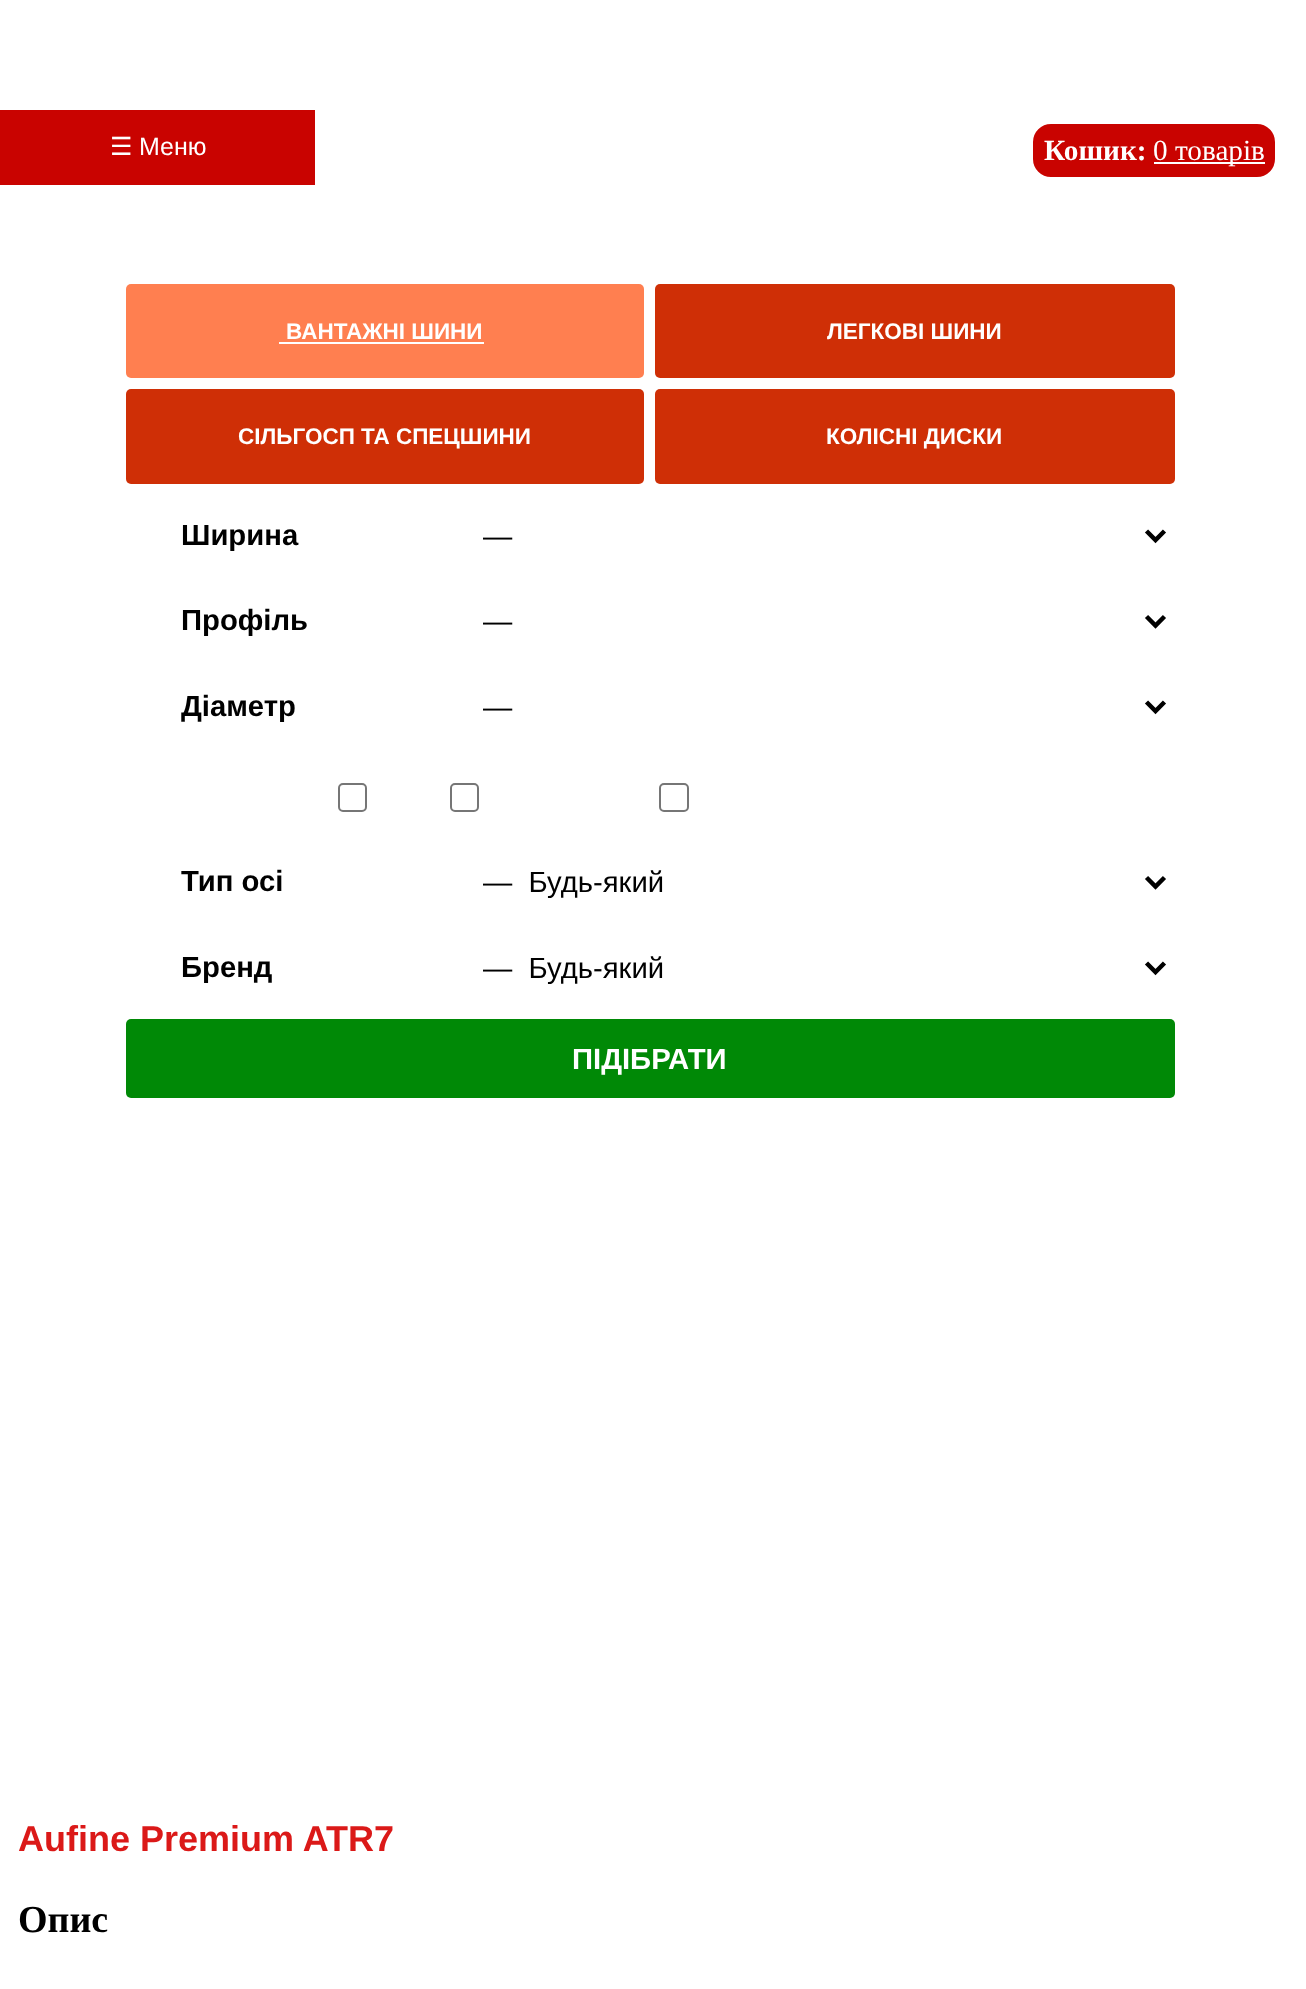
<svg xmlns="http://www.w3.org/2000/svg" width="1306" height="1989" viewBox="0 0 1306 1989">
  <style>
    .t1 { font: 25px DejaVu Sans; fill: #fff; }
    .t2 { font: 25px Liberation Sans; fill: #fff; }
    .t3 { font: bold 29.25px Liberation Serif; fill: #fff; }
    .t4 { font: 29.25px Liberation Serif; fill: #fff; }
    .t5 { font: bold 22.5px Liberation Sans; fill: #fff; }
    .t6 { font: bold 29.25px Liberation Sans; fill: #000; }
    .t7 { font: 29.25px Liberation Sans; fill: #000; }
    .t8 { font: bold 29.25px Liberation Sans; fill: #fff; }
    .t9 { font: bold 36px Liberation Sans; fill: #db1918; }
    .t10 { font: bold 38px Liberation Serif; fill: #000; }
  </style>
  <rect width="100%" height="100%" fill="#fff"/>
  <rect x="0" y="110" width="315" height="75" fill="#c90300"/>
  <text x="110" y="155" class="t1">☰</text>
  <text x="139" y="155" class="t2">Меню</text>
  <rect x="1030.5" y="121.5" width="247" height="58" rx="20.5" fill="#c90300" stroke="#fff" stroke-width="5"/>
  <text x="1044" y="160" class="t3">Кошик:</text>
  <rect x="1154" y="162" width="111" height="2" fill="#fff"/>
  <text x="1153" y="160" class="t4">0 товарів</text>
  <rect x="126" y="284" width="518" height="94" rx="5" fill="#ff7f50"/>
  <text x="286" y="339" class="t5">ВАНТАЖНІ ШИНИ</text>
  <rect x="279" y="342" width="205" height="2" fill="#fff"/>
  <rect x="655" y="284" width="520" height="94" rx="5" fill="#cf2f06"/>
  <text x="827" y="339" class="t5">ЛЕГКОВІ ШИНИ</text>
  <rect x="126" y="389" width="518" height="95" rx="5" fill="#cf2f06"/>
  <text x="238" y="444" class="t5">СІЛЬГОСП ТА СПЕЦШИНИ</text>
  <rect x="655" y="389" width="520" height="95" rx="5" fill="#cf2f06"/>
  <text x="826" y="444" class="t5">КОЛІСНІ ДИСКИ</text>
  <text x="181" y="545" class="t6">Ширина</text>
  <path d="M1146.5 531L1155.5 540L1164.5 531" fill="none" stroke="#000" stroke-width="4.5"/>
  <text x="483" y="546" class="t7">—</text>
  <text x="181" y="630" class="t6">Профіль</text>
  <path d="M1146.5 616.5L1155.5 625.5L1164.5 616.5" fill="none" stroke="#000" stroke-width="4.5"/>
  <text x="483" y="631" class="t7">—</text>
  <text x="181" y="716" class="t6">Діаметр</text>
  <path d="M1146.5 702L1155.5 711L1164.5 702" fill="none" stroke="#000" stroke-width="4.5"/>
  <text x="483" y="717" class="t7">—</text>
  <rect x="339" y="784" width="27" height="27" rx="4" fill="none" stroke="#767676" stroke-width="2"/>
  <rect x="451" y="784" width="27" height="27" rx="4" fill="none" stroke="#767676" stroke-width="2"/>
  <rect x="660" y="784" width="28" height="27" rx="4" fill="none" stroke="#767676" stroke-width="2"/>
  <text x="181" y="891" class="t6">Тип осі</text>
  <path d="M1146.5 877.5L1155.5 886.5L1164.5 877.5" fill="none" stroke="#000" stroke-width="4.5"/>
  <text x="483" y="892" class="t7" xml:space="preserve">—  Будь-який</text>
  <text x="181" y="977" class="t6">Бренд</text>
  <path d="M1146.5 963L1155.5 972L1164.5 963" fill="none" stroke="#000" stroke-width="4.5"/>
  <text x="483" y="978" class="t7" xml:space="preserve">—  Будь-який</text>
  <rect x="126" y="1019" width="1049" height="79" rx="5" fill="#008906"/>
  <text x="572" y="1069" class="t8">ПІДІБРАТИ</text>
  <text x="18" y="1851" class="t9">Aufine Premium ATR7</text>
  <text x="18" y="1932" class="t10">Опис</text>
</svg>
